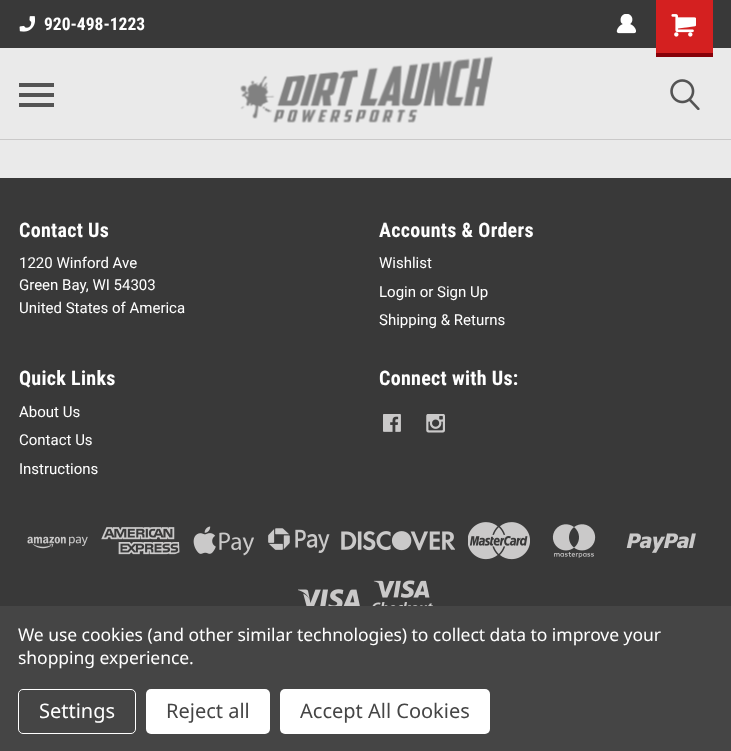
<svg xmlns="http://www.w3.org/2000/svg" width="731" height="751" viewBox="0 0 731 751">
  <style>
    .t1 { font: bold 17.5px Roboto Condensed; fill: #fff; }
    .t2 { font: bold 20px Roboto Condensed; letter-spacing: 0.3px; fill: #fff; }
    .t3 { font: 15px Roboto; fill: #fff; }
    .t4 { font: 17.5px Noto Sans; letter-spacing: -0.05px; fill: #fff; }
    .t5 { font: 20px Noto Sans; fill: #fff; }
    .t6 { font: 20px Noto Sans; fill: #454545; }
  </style>
  <rect width="100%" height="100%" fill="#eaeaea"/>
  <rect x="0" y="139" width="731" height="1" fill="#cac9c9"/>
  <rect x="0" y="0" width="731" height="48" fill="#393939"/>
  <image x="19" y="16" width="16" height="16" href="images/1.png"/>
  <text x="44" y="30" class="t1">920-498-1223</text>
  <image x="616" y="14" width="20" height="20" href="images/2.png"/>
  <rect x="656" y="0" width="57" height="53" fill="#d42020"/>
  <rect x="656" y="53" width="57" height="4" fill="#860109"/>
  <image x="671" y="14" width="25" height="23" href="images/3.png"/>
  <rect x="19" y="93" width="35" height="4" fill="#545454"/>
  <rect x="19" y="83" width="35" height="4" fill="#545454"/>
  <rect x="19" y="103" width="35" height="4" fill="#545454"/>
  <image x="240" y="56" width="253" height="67" href="images/4.png"/>
  <image x="670" y="79" width="30" height="31" href="images/5.png"/>
  <rect x="0" y="178" width="731" height="428" fill="#393939"/>
  <text x="19" y="237" class="t2">Contact Us</text>
  <text x="19" y="268" class="t3">1220 Winford Ave</text>
  <text x="19" y="290" class="t3">Green Bay, WI 54303</text>
  <text x="19" y="313" class="t3">United States of America</text>
  <text x="379" y="237" class="t2">Accounts &amp; Orders</text>
  <text x="379" y="268" class="t3">Wishlist</text>
  <text x="379" y="297" class="t3">Login or</text>
  <text x="437" y="297" class="t3">Sign Up</text>
  <text x="379" y="325" class="t3">Shipping &amp; Returns</text>
  <text x="19" y="385" class="t2">Quick Links</text>
  <text x="19" y="417" class="t3">About Us</text>
  <text x="19" y="445" class="t3">Contact Us</text>
  <text x="19" y="474" class="t3">Instructions</text>
  <text x="379" y="385" class="t2">Connect with Us:</text>
  <image x="383" y="414" width="18" height="18" href="images/6.png"/>
  <image x="426" y="414" width="19" height="19" href="images/7.png"/>
  <image x="27" y="536" width="61" height="13" href="images/8.png"/>
  <image x="101" y="527" width="79" height="28" href="images/9.png"/>
  <image x="193" y="526" width="61" height="30" href="images/10.png"/>
  <image x="268" y="528" width="62" height="25" href="images/11.png"/>
  <image x="341" y="531" width="114" height="20" href="images/12.png"/>
  <image x="468" y="522" width="62" height="38" href="images/13.png"/>
  <image x="552" y="524" width="44" height="34" href="images/14.png"/>
  <image x="626" y="533" width="70" height="20" href="images/15.png"/>
  <image x="298" y="589" width="62" height="17" href="images/16.png"/>
  <image x="372" y="580" width="61" height="26" href="images/17.png"/>
  <rect x="0" y="606" width="731" height="145" fill="#454545"/>
  <text x="18" y="641" class="t4">We use cookies (and other similar technologies) to collect data to improve your</text>
  <text x="18" y="664" class="t4">shopping experience.</text>
  <rect x="18.5" y="689.5" width="117" height="44" rx="4.5" fill="none" stroke="#fff"/>
  <text x="39" y="718" class="t5">Settings</text>
  <rect x="146" y="689" width="124" height="45" rx="5" fill="#fff"/>
  <text x="166" y="718" class="t6">Reject all</text>
  <rect x="280" y="689" width="210" height="45" rx="5" fill="#fff"/>
  <text x="300" y="718" class="t6">Accept All Cookies</text>
</svg>
